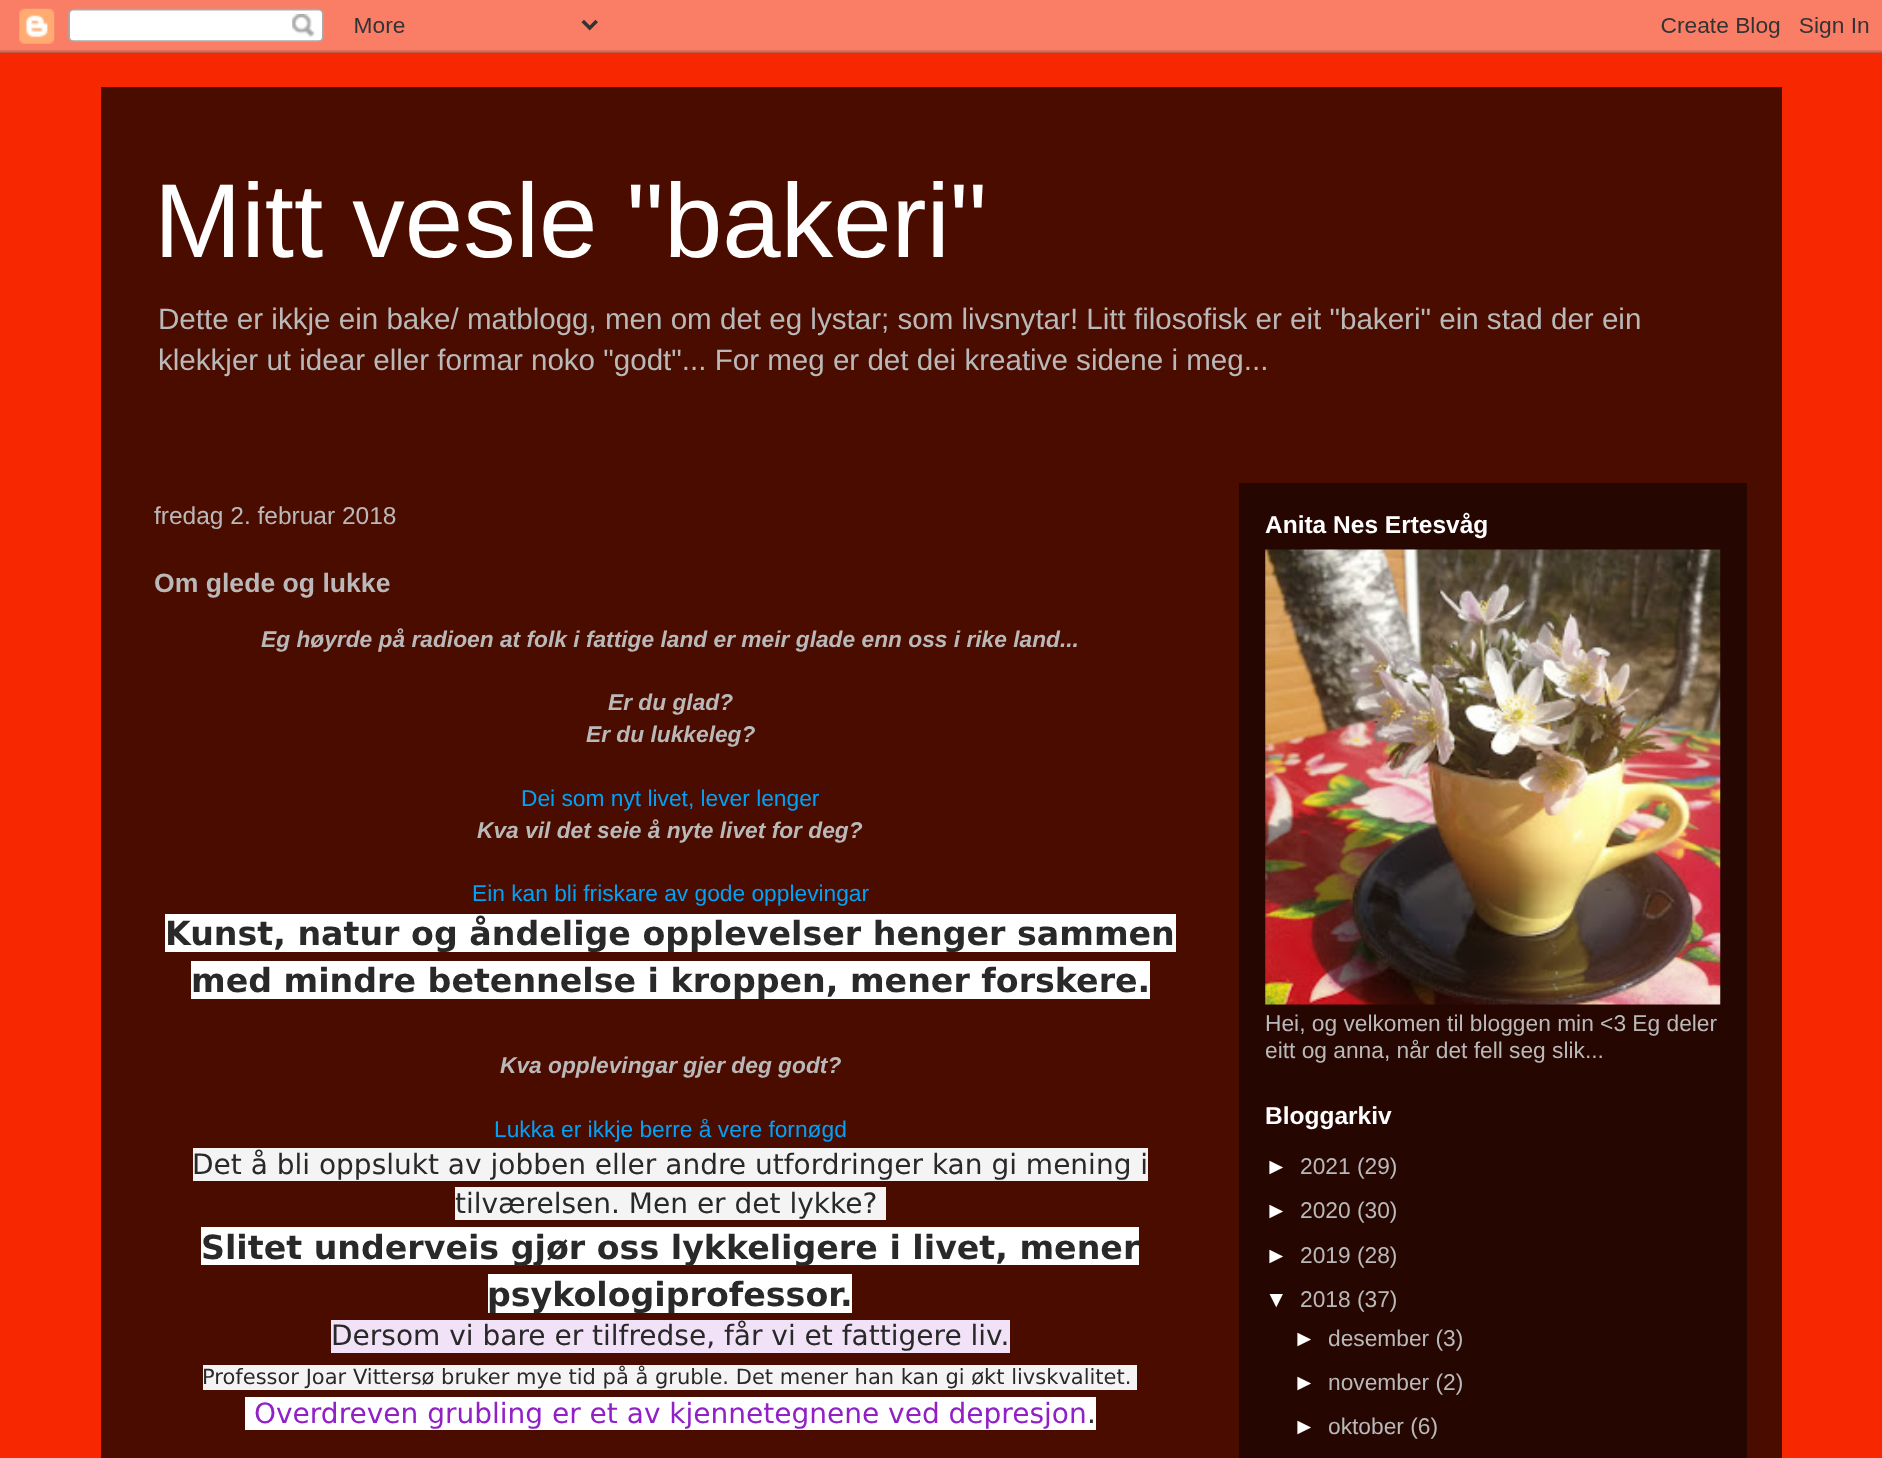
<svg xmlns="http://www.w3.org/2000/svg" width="1882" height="1458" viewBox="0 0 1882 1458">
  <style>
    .t1 { font: 105px Liberation Sans; fill: #fff; }
    .t2 { font: 29.57px Liberation Sans; fill: #b9b9b9; }
    .t3 { font: 24.5px Liberation Sans; fill: #b9b9b9; }
    .t4 { font: bold 26.6px Liberation Sans; fill: #b9b9b9; }
    .t5 { font: italic bold 22.75px Liberation Sans; fill: #b9b9b9; }
    .t6 { font: 22.75px Liberation Sans; fill: #00a2f8; }
    .t7 { font: bold 33.25px DejaVu Sans; fill: #292929; }
    .t8 { font: 28px DejaVu Sans; fill: #292929; }
    .t9 { font: 21px DejaVu Sans; fill: #292929; }
    .t10 { font: 28px DejaVu Sans; fill: #9120c6; }
    .t11 { font: bold 24.5px Liberation Sans; fill: #fff; }
    .t12 { font: 22.75px Liberation Sans; fill: #b9b9b9; }
    .t13 { font: 22.75px Liberation Sans; fill: #fff; }
  </style>
  <rect width="100%" height="100%" fill="#f72701"/>
  <image x="0" y="0" width="1882" height="53" href="images/1.png"/>
  <rect x="101" y="87" width="1681" height="1371" fill="#4b0c00"/>
  <text x="154" y="257" class="t1">Mitt vesle "bakeri"</text>
  <text x="158" y="329" class="t2">Dette er ikkje ein bake/ matblogg, men om det eg lystar; som livsnytar! Litt filosofisk er eit "bakeri" ein stad der ein</text>
  <text x="158" y="370" class="t2">klekkjer ut idear eller formar noko "godt"... For meg er det dei kreative sidene i meg...</text>
  <rect x="1239" y="483" width="508" height="975" fill="#260600"/>
  <text x="154" y="524" class="t3">fredag 2. februar 2018</text>
  <text x="154" y="592" class="t4">Om glede og lukke</text>
  <text x="261" y="647" class="t5">Eg høyrde på radioen at folk i fattige land er meir glade enn oss i rike land...</text>
  <text x="608" y="710" class="t5">Er du glad?</text>
  <text x="586" y="742" class="t5">Er du lukkeleg?</text>
  <text x="521" y="806" class="t6">Dei som nyt livet, lever lenger</text>
  <text x="477" y="838" class="t5">Kva vil det seie å nyte livet for deg?</text>
  <text x="472" y="901" class="t6">Ein kan bli friskare av gode opplevingar</text>
  <rect x="165" y="914" width="1011" height="38" fill="#fff"/>
  <text x="165" y="945" class="t7">Kunst, natur og åndelige opplevelser henger sammen</text>
  <rect x="191" y="961" width="959" height="38" fill="#fff"/>
  <text x="191" y="992" class="t7">med mindre betennelse i kroppen, mener forskere.</text>
  <text x="500" y="1073" class="t5">Kva opplevingar gjer deg godt?</text>
  <text x="494" y="1137" class="t6">Lukka er ikkje berre å vere fornøgd</text>
  <rect x="193" y="1148" width="955" height="33" fill="#f4f4f4"/>
  <text x="192" y="1174" class="t8">Det å bli oppslukt av jobben eller andre utfordringer kan gi mening i</text>
  <rect x="455" y="1187" width="431" height="33" fill="#f4f4f4"/>
  <text x="455" y="1213" class="t8">tilværelsen. Men er det lykke?</text>
  <rect x="201" y="1227" width="938" height="38" fill="#fff"/>
  <text x="201" y="1259" class="t7">Slitet underveis gjør oss lykkeligere i livet, mener</text>
  <rect x="488" y="1274" width="364" height="39" fill="#fff"/>
  <text x="487" y="1306" class="t7">psykologiprofessor.</text>
  <rect x="331" y="1320" width="679" height="33" fill="#f1e2f8"/>
  <text x="331" y="1345" class="t8">Dersom vi bare er tilfredse, får vi et fattigere liv.</text>
  <rect x="203" y="1365" width="934" height="25" fill="#f4f4f4"/>
  <text x="202" y="1384" class="t9">Professor Joar Vittersø bruker mye tid på å gruble. Det mener han kan gi økt livskvalitet.</text>
  <rect x="245" y="1397" width="851" height="33" fill="#fff"/>
  <text x="254" y="1423" class="t10">Overdreven grubling er et av kjennetegnene ved depresjon</text>
  <text x="1087" y="1423" class="t8">.</text>
  <text x="1265" y="533" class="t11">Anita Nes Ertesvåg</text>
  <image x="1265" y="549" width="456" height="456" href="images/2.png"/>
  <text x="1265" y="1031" class="t12">Hei, og velkomen til bloggen min &lt;3 Eg deler</text>
  <text x="1265" y="1058" class="t12">eitt og anna, når det fell seg slik...</text>
  <text x="1265" y="1124" class="t11">Bloggarkiv</text>
  <text x="1265" y="1174" class="t13">►</text>
  <text x="1300" y="1174" class="t12">2021 (29)</text>
  <text x="1265" y="1218" class="t13">►</text>
  <text x="1300" y="1218" class="t12">2020 (30)</text>
  <text x="1265" y="1263" class="t13">►</text>
  <text x="1300" y="1263" class="t12">2019 (28)</text>
  <text x="1265" y="1307" class="t13">▼</text>
  <text x="1300" y="1307" class="t12">2018 (37)</text>
  <text x="1293" y="1346" class="t13">►</text>
  <text x="1328" y="1346" class="t12">desember (3)</text>
  <text x="1293" y="1390" class="t13">►</text>
  <text x="1328" y="1390" class="t12">november (2)</text>
  <text x="1293" y="1434" class="t13">►</text>
  <text x="1328" y="1434" class="t12">oktober (6)</text>
</svg>
